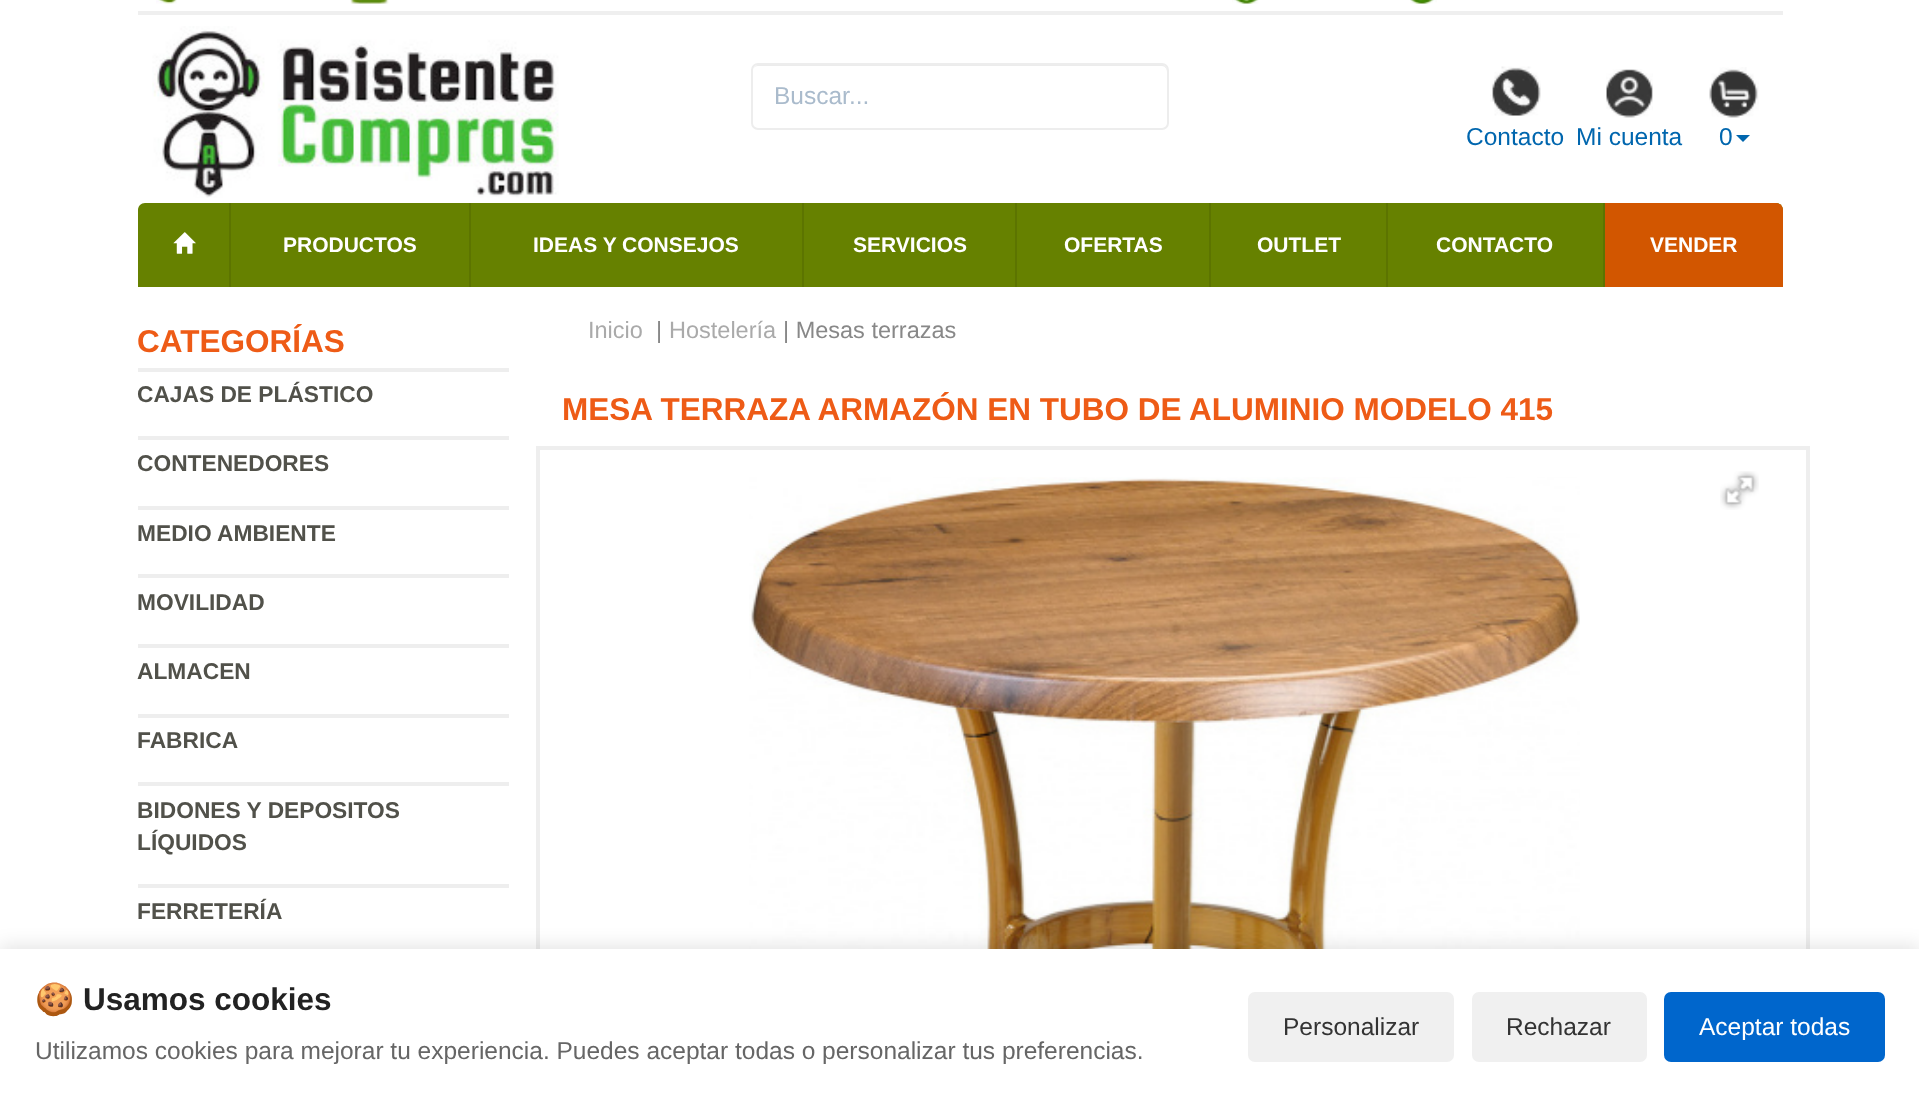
<svg xmlns="http://www.w3.org/2000/svg" width="1919" height="1103" viewBox="0 0 1919 1103">
  <style>
    .t1 { font: 24.5px Liberation Sans; fill: #abc; }
    .t2 { font: 24.5px Liberation Sans; fill: #0066ae; }
    .t3 { font: bold 21px Liberation Sans; fill: #fff; }
    .t4 { font: bold 31.5px Liberation Sans; fill: #ee5b16; }
    .t5 { font: bold 22.75px Liberation Sans; fill: #51514a; }
    .t6 { font: 23.5px Liberation Sans; fill: #aaa; }
    .t7 { font: 23.5px Liberation Sans; fill: #888; }
    .t8 { font: bold 31.5px Noto Color Emoji; fill: #222; }
    .t9 { font: bold 31.5px Liberation Sans; fill: #222; }
    .t10 { font: 24.5px Liberation Sans; fill: #666; }
    .t11 { font: 24.5px Liberation Sans; fill: #333; }
    .t12 { font: 24.5px Liberation Sans; fill: #fff; }
  </style>
  <rect width="100%" height="100%" fill="#fff"/>
  <rect x="138" y="11" width="1645" height="4" fill="#efefef"/>
  <image x="156" y="0" width="21" height="4" href="images/1.png"/>
  <image x="350" y="0" width="39" height="4" href="images/2.png"/>
  <image x="1232" y="0" width="27" height="4" href="images/3.png"/>
  <image x="1410" y="0" width="27" height="4" href="images/4.png"/>
  <image x="152" y="26" width="407" height="172" href="images/5.png"/>
  <path d="M758 66H1162C1165 66 1167 69 1167 72V70C1167 67 1165 65 1162 65H758C756 65 754 67 753 69C754 67 756 66 758 66Z" fill="#ececec"/>
  <rect x="752" y="64" width="416" height="65" rx="6" fill="none" stroke="#ededed" stroke-width="2"/>
  <text x="774" y="104" class="t1">Buscar...</text>
  <image x="1490" y="66" width="51" height="50" href="images/6.png"/>
  <text x="1466" y="145" class="t2">Contacto</text>
  <image x="1606" y="69" width="47" height="49" href="images/7.png"/>
  <text x="1576" y="145" class="t2">Mi cuenta</text>
  <image x="1709" y="67" width="50" height="51" href="images/8.png"/>
  <text x="1719" y="145" class="t2">0</text>
  <path d="M1736 135H1750L1743 142Z" fill="#0066ae"/>
  <path d="M145 203H1776C1780 203 1783 206 1783 210V287H138V210C138 206 141 203 145 203Z" fill="#668100"/>
  <rect x="229" y="203" width="2" height="84" fill="#5c7400"/>
  <image x="173" y="232" width="23" height="22" href="images/9.png"/>
  <rect x="469" y="203" width="2" height="84" fill="#5c7400"/>
  <text x="283" y="252" class="t3">PRODUCTOS</text>
  <rect x="802" y="203" width="2" height="84" fill="#5c7400"/>
  <text x="533" y="252" class="t3">IDEAS Y CONSEJOS</text>
  <rect x="1015" y="203" width="2" height="84" fill="#5c7400"/>
  <text x="853" y="252" class="t3">SERVICIOS</text>
  <rect x="1209" y="203" width="2" height="84" fill="#5c7400"/>
  <text x="1064" y="252" class="t3">OFERTAS</text>
  <rect x="1386" y="203" width="2" height="84" fill="#5c7400"/>
  <text x="1257" y="252" class="t3">OUTLET</text>
  <rect x="1603" y="203" width="2" height="84" fill="#5c7400"/>
  <text x="1436" y="252" class="t3">CONTACTO</text>
  <path d="M1605 203H1776C1780 203 1783 206 1783 210V287H1605Z" fill="#d25600"/>
  <text x="1650" y="252" class="t3">VENDER</text>
  <text x="137" y="352" class="t4">CATEGORÍAS</text>
  <rect x="138" y="368" width="371" height="4" fill="#eee"/>
  <text x="137" y="402" class="t5">CAJAS DE PLÁSTICO</text>
  <rect x="138" y="436" width="371" height="4" fill="#eee"/>
  <text x="137" y="471" class="t5">CONTENEDORES</text>
  <rect x="138" y="506" width="371" height="4" fill="#eee"/>
  <text x="137" y="541" class="t5">MEDIO AMBIENTE</text>
  <rect x="138" y="574" width="371" height="4" fill="#eee"/>
  <text x="137" y="610" class="t5">MOVILIDAD</text>
  <rect x="138" y="644" width="371" height="4" fill="#eee"/>
  <text x="137" y="679" class="t5">ALMACEN</text>
  <rect x="138" y="714" width="371" height="4" fill="#eee"/>
  <text x="137" y="748" class="t5">FABRICA</text>
  <rect x="138" y="782" width="371" height="4" fill="#eee"/>
  <text x="137" y="818" class="t5">BIDONES Y DEPOSITOS</text>
  <text x="137" y="850" class="t5">LÍQUIDOS</text>
  <rect x="138" y="884" width="371" height="4" fill="#eee"/>
  <text x="137" y="919" class="t5">FERRETERÍA</text>
  <text x="588" y="338" class="t6">Inicio</text>
  <text x="656" y="338" class="t7">|</text>
  <text x="669" y="338" class="t6">Hostelería</text>
  <text x="783" y="338" class="t7">| Mesas terrazas</text>
  <text x="562" y="420" class="t4">MESA TERRAZA ARMAZÓN EN TUBO DE ALUMINIO MODELO 415</text>
  <rect x="538" y="448" width="1270" height="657" fill="none" stroke="#eee" stroke-width="4"/>
  <image x="749" y="477" width="831" height="472" href="images/10.png"/>
  <image x="1720" y="471" width="39" height="39" href="images/11.png"/>
  <rect x="0" y="945" width="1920" height="156" fill="#0000001a" filter="blur(9px)"/>
  <rect x="0" y="949" width="1919" height="154" fill="#fff"/>
  <text x="35" y="1010" class="t8">🍪</text>
  <text x="83" y="1010" class="t9">Usamos cookies</text>
  <text x="35" y="1059" class="t10">Utilizamos cookies para mejorar tu experiencia. Puedes aceptar todas o personalizar tus preferencias.</text>
  <rect x="1248" y="992" width="206" height="70" rx="7" fill="#f0f0f0"/>
  <text x="1283" y="1035" class="t11">Personalizar</text>
  <rect x="1472" y="992" width="175" height="70" rx="7" fill="#f0f0f0"/>
  <text x="1506" y="1035" class="t11">Rechazar</text>
  <rect x="1664" y="992" width="221" height="70" rx="7" fill="#06c"/>
  <text x="1699" y="1035" class="t12">Aceptar todas</text>
</svg>
